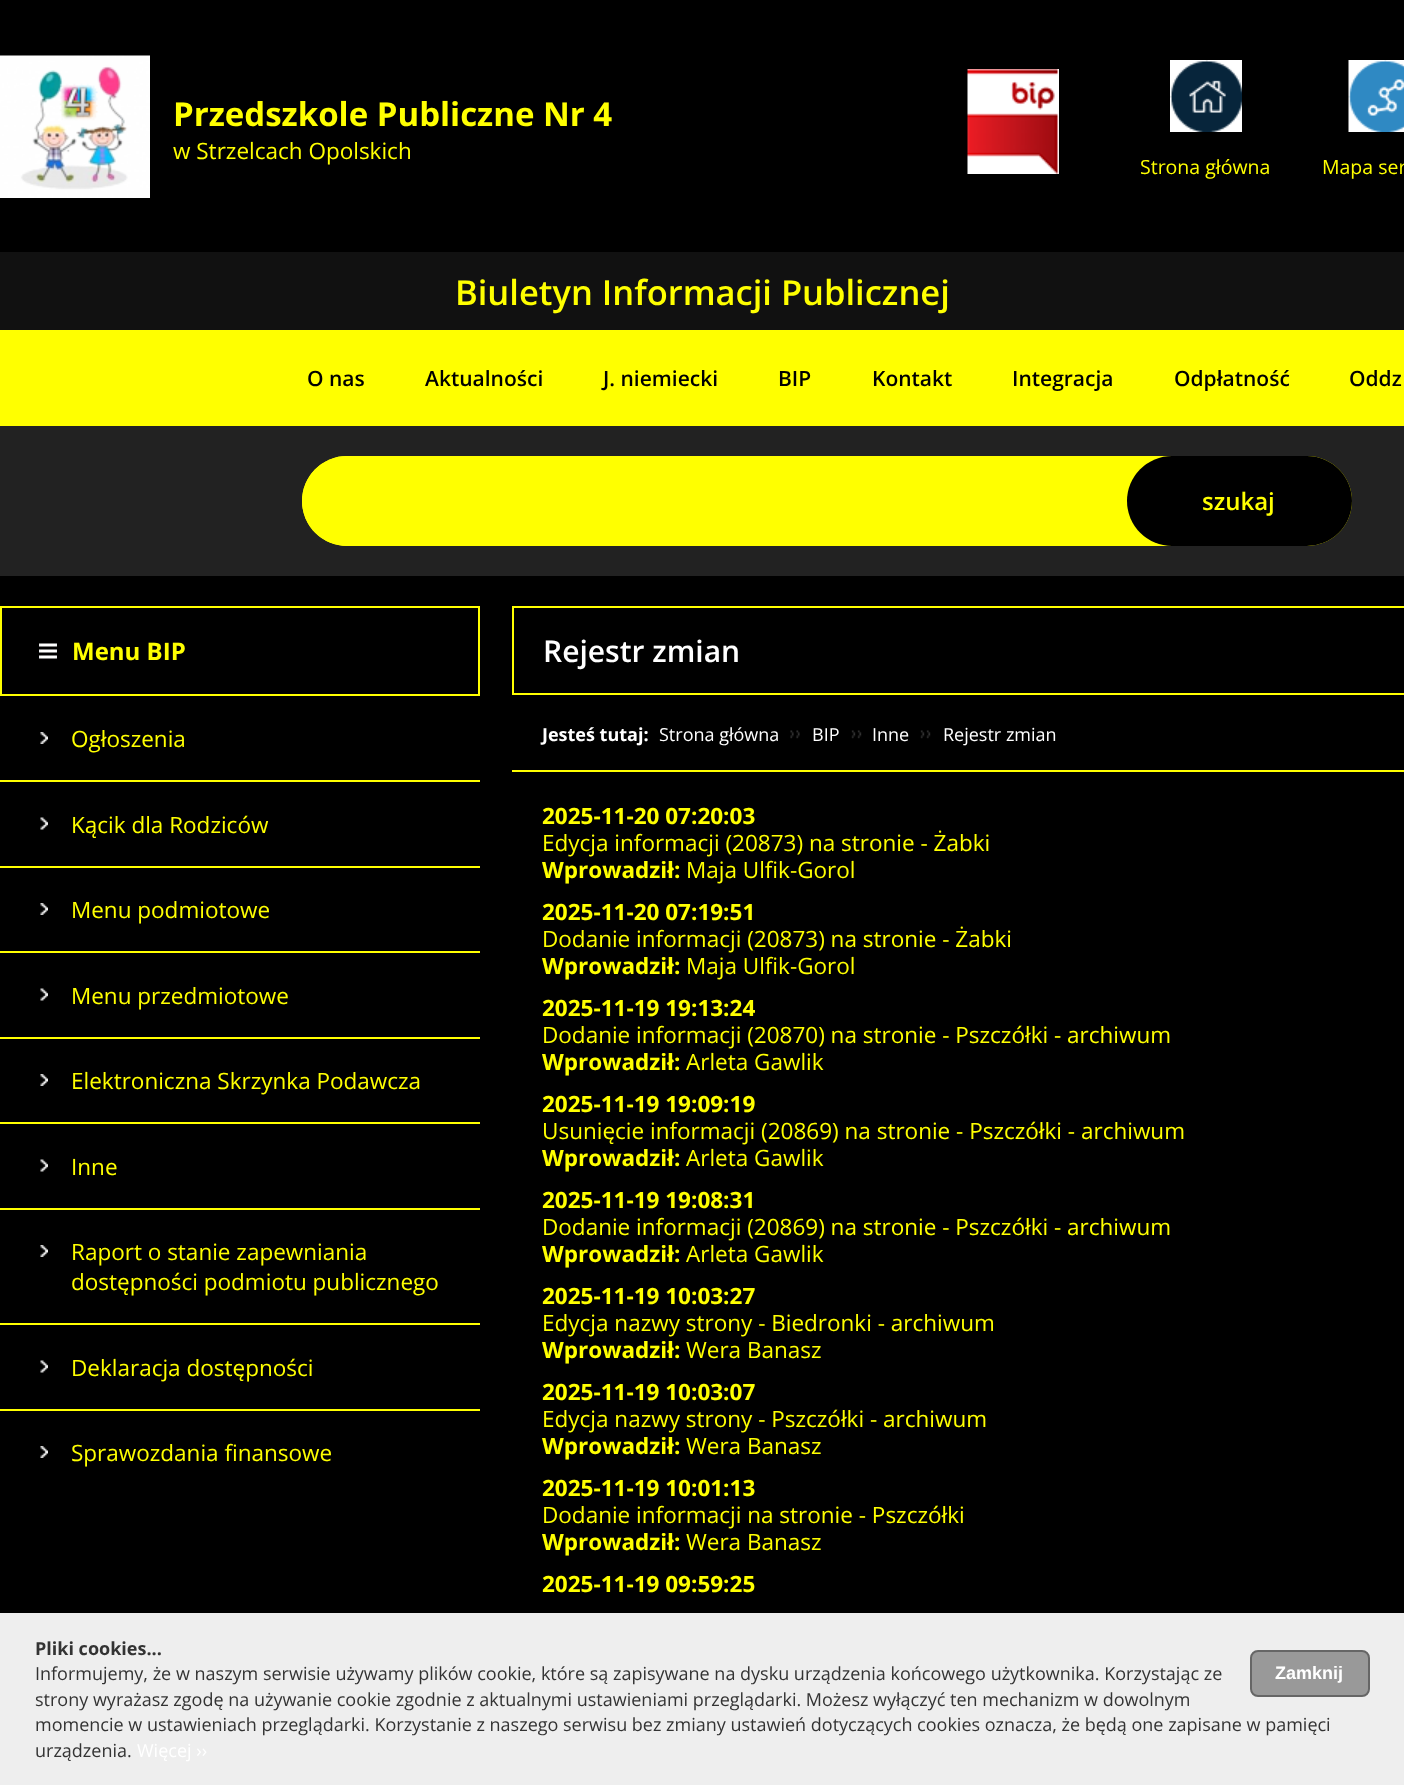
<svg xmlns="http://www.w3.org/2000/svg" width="1404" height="1785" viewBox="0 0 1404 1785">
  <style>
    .t1 { font: bold 33px Open Sans; fill: #ff0; }
    .t2 { font: 22.5px Open Sans; fill: #ff0; }
    .t3 { font: 19.5px Open Sans; fill: #ff0; }
    .t4 { font: 600 34.5px Open Sans; fill: #ff0; }
    .t5 { font: 600 21px Open Sans; fill: #000; }
    .t6 { font: 600 24px Open Sans; fill: #ff0; }
    .t7 { font: bold 24px Open Sans; fill: #ff0; }
    .t8 { font: 600 30px Open Sans; fill: #fff; }
    .t9 { font: bold 18px Open Sans; fill: #fff; }
    .t10 { font: 18px Open Sans; fill: #fff; }
    .t11 { font: bold 22.5px Open Sans; fill: #ff0; }
    .t12 { font: bold 18px Open Sans; fill: #333; }
    .t13 { font: 18px Open Sans; fill: #333; }
    .t14 { font: bold 18px Liberation Sans; fill: #fff; }
  </style>
  <rect width="100%" height="100%" fill="#000"/>
  <image x="0" y="55" width="150" height="143" href="images/1.png"/>
  <text x="173" y="126" class="t1">Przedszkole Publiczne Nr 4</text>
  <text x="173" y="159" class="t2">w Strzelcach Opolskich</text>
  <image x="967" y="69" width="92" height="105" href="images/2.png"/>
  <image x="1170" y="60" width="72" height="72" href="images/3.png"/>
  <text x="1140" y="174" class="t3">Strona główna</text>
  <image x="1348" y="60" width="56" height="72" href="images/4.png"/>
  <text x="1322" y="174" class="t3">Mapa ser</text>
  <rect x="0" y="252" width="1404" height="78" fill="#111"/>
  <text x="455" y="305" class="t4">Biuletyn Informacji Publicznej</text>
  <rect x="0" y="330" width="1404" height="96" fill="#ff0"/>
  <text x="307" y="386" class="t5">O nas</text>
  <text x="425" y="386" class="t5">Aktualności</text>
  <text x="603" y="386" class="t5">J. niemiecki</text>
  <text x="778" y="386" class="t5">BIP</text>
  <text x="872" y="386" class="t5">Kontakt</text>
  <text x="1012" y="386" class="t5">Integracja</text>
  <text x="1174" y="386" class="t5">Odpłatność</text>
  <text x="1349" y="386" class="t5">Oddz</text>
  <rect x="0" y="426" width="1404" height="150" fill="#222"/>
  <rect x="302" y="456" width="1050" height="90" rx="45" fill="#ff0"/>
  <rect x="302" y="456" width="795" height="90" rx="45" fill="#ff0"/>
  <rect x="1127" y="456" width="225" height="90" rx="45" fill="#000"/>
  <text x="1202" y="510" class="t6">szukaj</text>
  <image x="39" y="643" width="18" height="16" href="images/5.png"/>
  <rect x="1" y="607" width="478" height="88" fill="none" stroke="#ff0" stroke-width="2"/>
  <text x="72" y="660" class="t7">Menu BIP</text>
  <image x="40" y="732" width="8" height="12" href="images/6.png"/>
  <rect x="0" y="780" width="480" height="2" fill="#ff0"/>
  <text x="71" y="747" class="t2">Ogłoszenia</text>
  <image x="40" y="817" width="8" height="13" href="images/7.png"/>
  <rect x="0" y="866" width="480" height="2" fill="#ff0"/>
  <text x="71" y="833" class="t2">Kącik dla Rodziców</text>
  <image x="40" y="903" width="8" height="12" href="images/6.png"/>
  <rect x="0" y="951" width="480" height="2" fill="#ff0"/>
  <text x="71" y="918" class="t2">Menu podmiotowe</text>
  <image x="40" y="988" width="8" height="13" href="images/7.png"/>
  <rect x="0" y="1037" width="480" height="2" fill="#ff0"/>
  <text x="71" y="1004" class="t2">Menu przedmiotowe</text>
  <image x="40" y="1074" width="8" height="12" href="images/6.png"/>
  <rect x="0" y="1122" width="480" height="2" fill="#ff0"/>
  <text x="71" y="1089" class="t2">Elektroniczna Skrzynka Podawcza</text>
  <image x="40" y="1159" width="8" height="13" href="images/7.png"/>
  <rect x="0" y="1208" width="480" height="2" fill="#ff0"/>
  <text x="71" y="1175" class="t2">Inne</text>
  <image x="40" y="1245" width="8" height="12" href="images/6.png"/>
  <rect x="0" y="1323" width="480" height="2" fill="#ff0"/>
  <text x="71" y="1260" class="t2">Raport o stanie zapewniania</text>
  <text x="71" y="1290" class="t2">dostępności podmiotu publicznego</text>
  <image x="40" y="1360" width="8" height="13" href="images/7.png"/>
  <rect x="0" y="1409" width="480" height="2" fill="#ff0"/>
  <text x="71" y="1376" class="t2">Deklaracja dostępności</text>
  <image x="40" y="1446" width="8" height="12" href="images/6.png"/>
  <text x="71" y="1461" class="t2">Sprawozdania finansowe</text>
  <rect x="513" y="607" width="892" height="87" fill="none" stroke="#ff0" stroke-width="2"/>
  <text x="543" y="662" class="t8">Rejestr zmian</text>
  <rect x="512" y="770" width="892" height="2" fill="#ff0"/>
  <text x="542" y="741" class="t9">Jesteś tutaj:</text>
  <image x="790" y="730" width="10" height="9" href="images/8.png"/>
  <text x="659" y="741" class="t10">Strona główna</text>
  <image x="851" y="730" width="11" height="9" href="images/9.png"/>
  <text x="812" y="741" class="t10">BIP</text>
  <image x="920" y="730" width="11" height="9" href="images/9.png"/>
  <text x="872" y="741" class="t10">Inne</text>
  <text x="943" y="741" class="t10">Rejestr zmian</text>
  <text x="542" y="824" class="t11">2025-11-20 07:20:03</text>
  <text x="542" y="851" class="t2">Edycja informacji (20873) na stronie - Żabki</text>
  <text x="542" y="878" class="t11">Wprowadził:</text>
  <text x="686" y="878" class="t2">Maja Ulfik-Gorol</text>
  <text x="542" y="920" class="t11">2025-11-20 07:19:51</text>
  <text x="542" y="947" class="t2">Dodanie informacji (20873) na stronie - Żabki</text>
  <text x="542" y="974" class="t11">Wprowadził:</text>
  <text x="686" y="974" class="t2">Maja Ulfik-Gorol</text>
  <text x="542" y="1016" class="t11">2025-11-19 19:13:24</text>
  <text x="542" y="1043" class="t2">Dodanie informacji (20870) na stronie - Pszczółki - archiwum</text>
  <text x="542" y="1070" class="t11">Wprowadził:</text>
  <text x="686" y="1070" class="t2">Arleta Gawlik</text>
  <text x="542" y="1112" class="t11">2025-11-19 19:09:19</text>
  <text x="542" y="1139" class="t2">Usunięcie informacji (20869) na stronie - Pszczółki - archiwum</text>
  <text x="542" y="1166" class="t11">Wprowadził:</text>
  <text x="686" y="1166" class="t2">Arleta Gawlik</text>
  <text x="542" y="1208" class="t11">2025-11-19 19:08:31</text>
  <text x="542" y="1235" class="t2">Dodanie informacji (20869) na stronie - Pszczółki - archiwum</text>
  <text x="542" y="1262" class="t11">Wprowadził:</text>
  <text x="686" y="1262" class="t2">Arleta Gawlik</text>
  <text x="542" y="1304" class="t11">2025-11-19 10:03:27</text>
  <text x="542" y="1331" class="t2">Edycja nazwy strony - Biedronki - archiwum</text>
  <text x="542" y="1358" class="t11">Wprowadził:</text>
  <text x="686" y="1358" class="t2">Wera Banasz</text>
  <text x="542" y="1400" class="t11">2025-11-19 10:03:07</text>
  <text x="542" y="1427" class="t2">Edycja nazwy strony - Pszczółki - archiwum</text>
  <text x="542" y="1454" class="t11">Wprowadził:</text>
  <text x="686" y="1454" class="t2">Wera Banasz</text>
  <text x="542" y="1496" class="t11">2025-11-19 10:01:13</text>
  <text x="542" y="1523" class="t2">Dodanie informacji na stronie - Pszczółki</text>
  <text x="542" y="1550" class="t11">Wprowadził:</text>
  <text x="686" y="1550" class="t2">Wera Banasz</text>
  <text x="542" y="1592" class="t11">2025-11-19 09:59:25</text>
  <rect x="0" y="1613" width="1404" height="172" fill="#eee"/>
  <text x="35" y="1655" class="t12">Pliki cookies...</text>
  <text x="35" y="1680" class="t13">Informujemy, że w naszym serwisie używamy plików cookie, które są zapisywane na dysku urządzenia końcowego użytkownika. Korzystając ze</text>
  <rect x="1251" y="1651" width="118" height="45" rx="7" fill="#999" stroke="#666" stroke-width="2"/>
  <text x="1275" y="1679" class="t14">Zamknij</text>
  <text x="35" y="1706" class="t13">strony wyrażasz zgodę na używanie cookie zgodnie z aktualnymi ustawieniami przeglądarki. Możesz wyłączyć ten mechanizm w dowolnym</text>
  <text x="35" y="1731" class="t13">momencie w ustawieniach przeglądarki. Korzystanie z naszego serwisu bez zmiany ustawień dotyczących cookies oznacza, że będą one zapisane w pamięci</text>
  <text x="35" y="1757" class="t13">urządzenia.</text>
  <text x="137" y="1757" class="t10">Więcej ››</text>
</svg>
